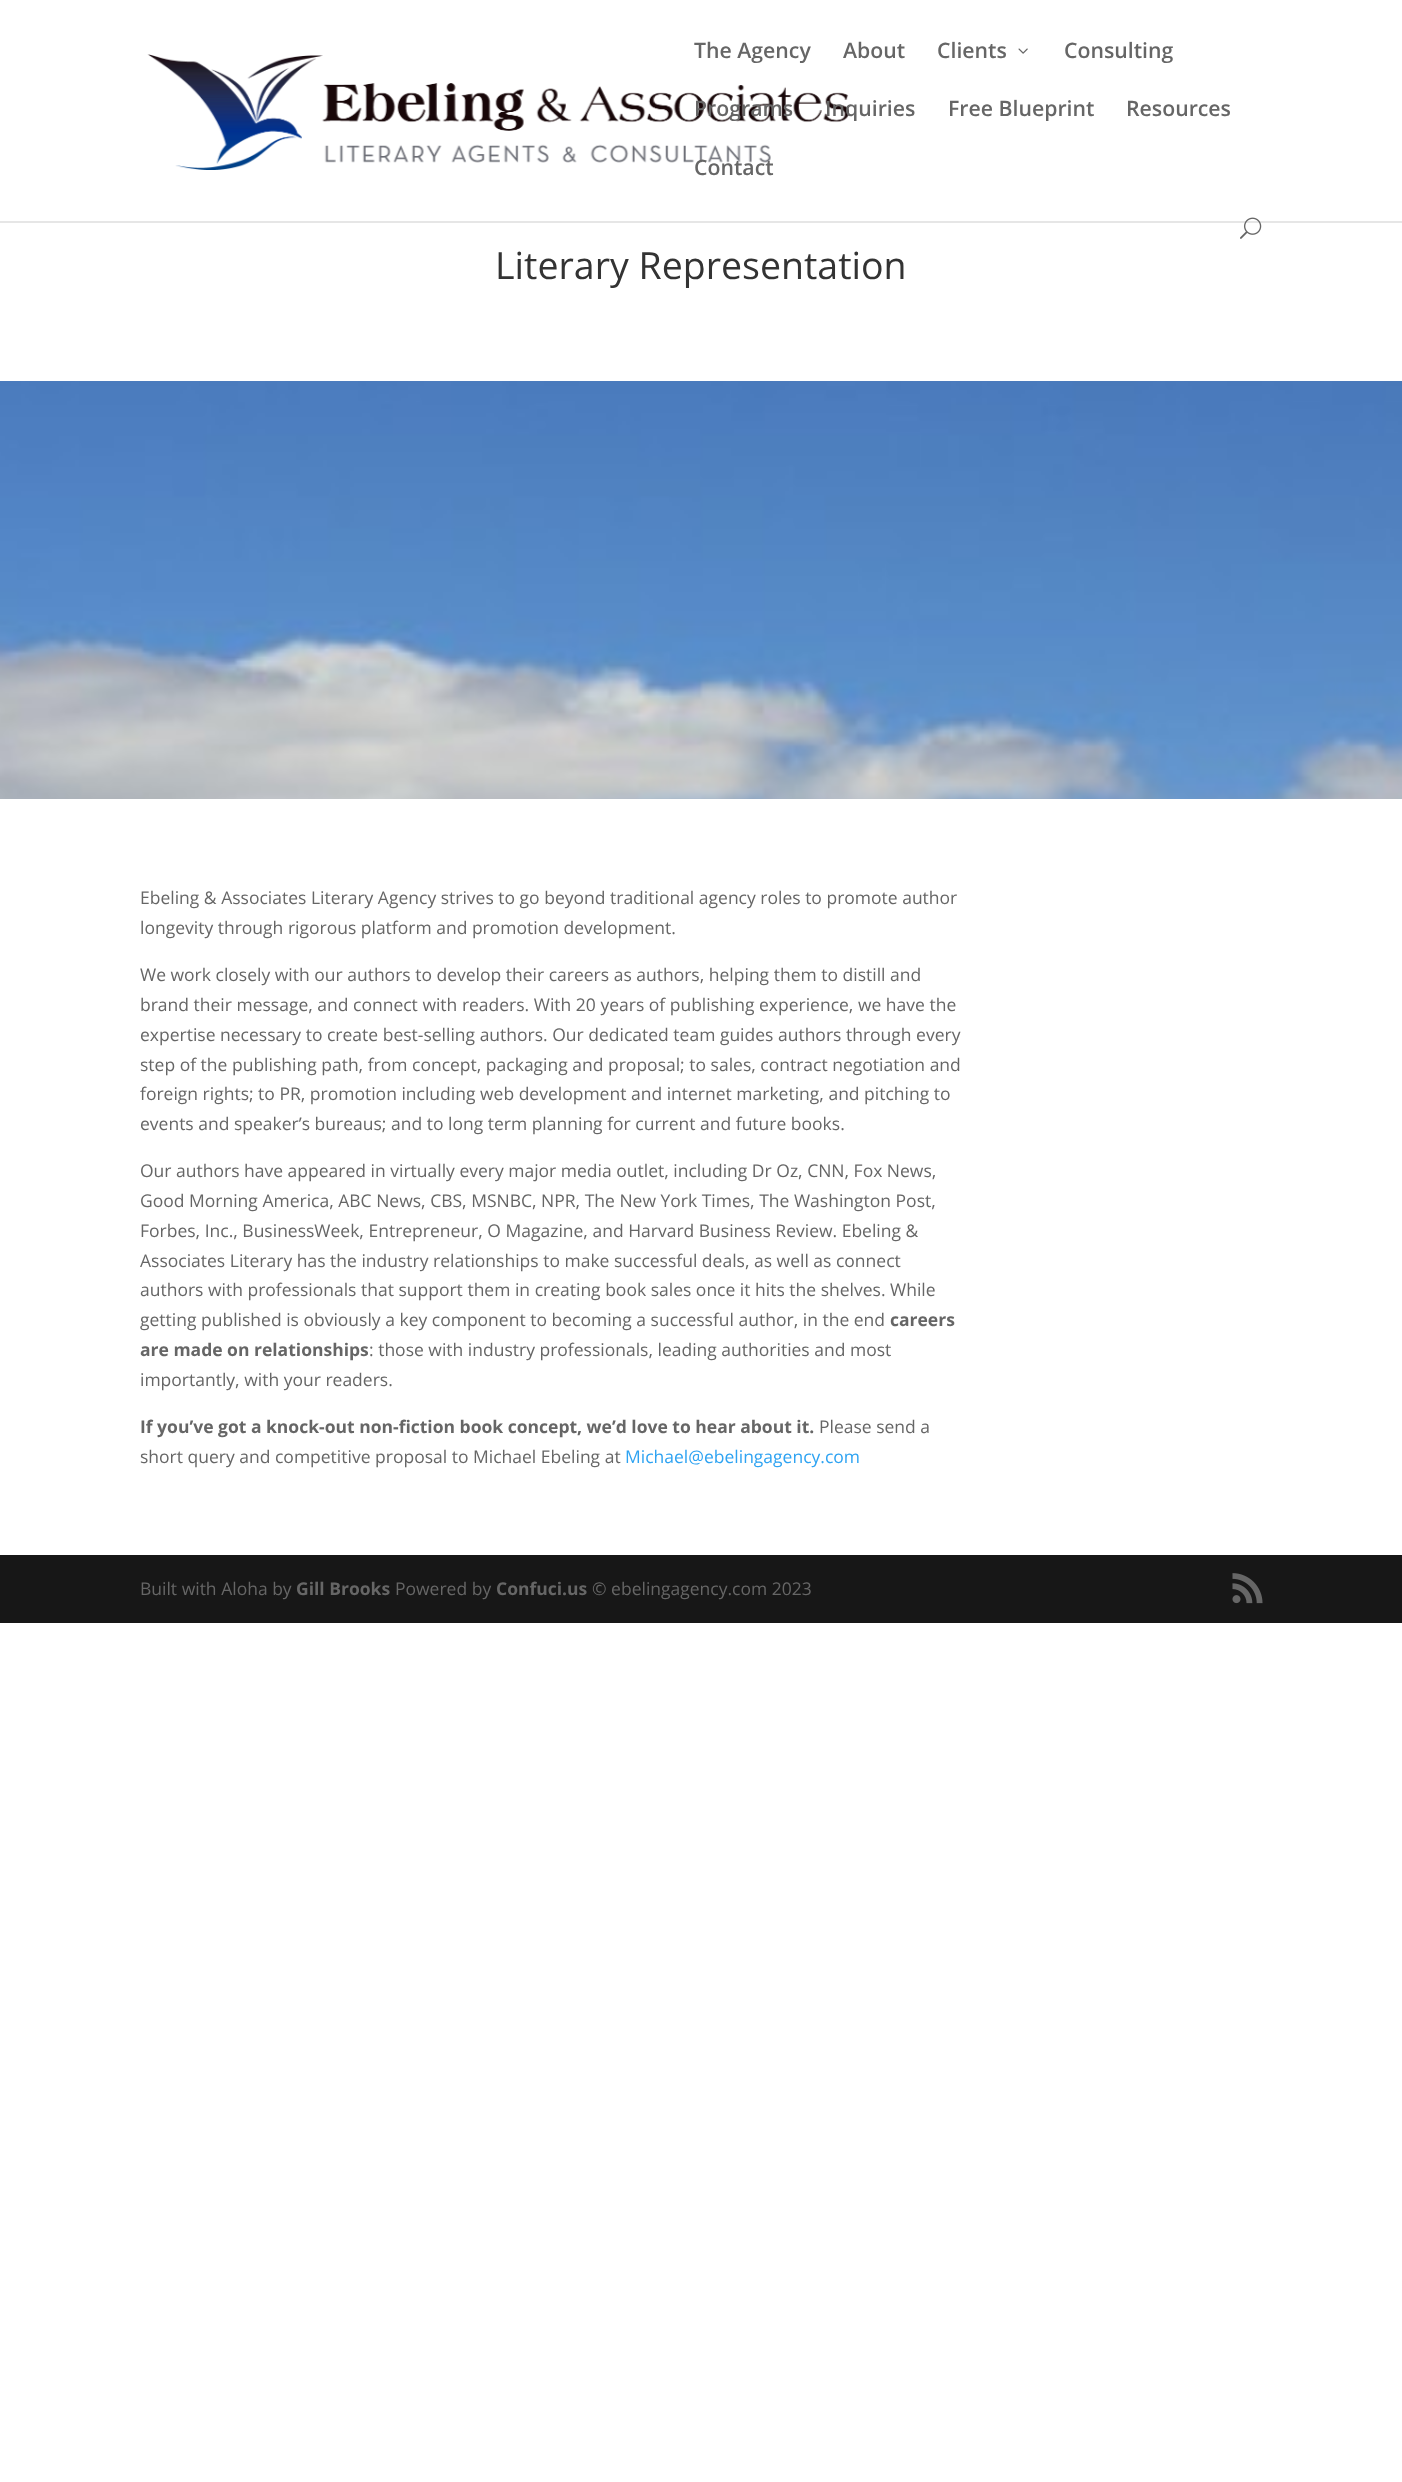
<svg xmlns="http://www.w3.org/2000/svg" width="1402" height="2482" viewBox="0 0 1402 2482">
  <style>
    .t1 { font: 600 21.25px Open Sans; fill: #666; }
    .t2 { font: 37.5px Open Sans; fill: #333; }
    .t3 { font: 17.5px Open Sans; fill: #666; }
    .t4 { font: bold 17.5px Open Sans; fill: #666; }
    .t5 { font: 17.5px Open Sans; fill: #2ea3f2; }
  </style>
  <rect width="100%" height="100%" fill="#fff"/>
  <path d="M0 221V223H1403V1H1402V221Z" fill="#e6e6e6"/>
  <image x="147" y="54" width="702" height="116" href="images/1.png"/>
  <text x="694" y="58" class="t1">The Agency</text>
  <text x="843" y="58" class="t1">About</text>
  <text x="937" y="58" class="t1">Clients</text>
  <image x="1018" y="48" width="10" height="6" href="images/2.png"/>
  <text x="1064" y="58" class="t1">Consulting</text>
  <text x="694" y="116" class="t1">Programs</text>
  <text x="825" y="116" class="t1">Inquiries</text>
  <text x="948" y="116" class="t1">Free Blueprint</text>
  <text x="1126" y="116" class="t1">Resources</text>
  <text x="694" y="175" class="t1">Contact</text>
  <image x="1240" y="217" width="22" height="22" href="images/3.png"/>
  <text x="495" y="279" class="t2">Literary Representation</text>
  <image x="0" y="381" width="1402" height="418" href="images/4.png"/>
  <text x="140" y="904" class="t3">Ebeling &amp; Associates Literary Agency strives to go beyond traditional agency roles to promote author</text>
  <text x="140" y="934" class="t3">longevity through rigorous platform and promotion development.</text>
  <text x="140" y="981" class="t3">We work closely with our authors to develop their careers as authors, helping them to distill and</text>
  <text x="140" y="1011" class="t3">brand their message, and connect with readers. With 20 years of publishing experience, we have the</text>
  <text x="140" y="1041" class="t3">expertise necessary to create best-selling authors. Our dedicated team guides authors through every</text>
  <text x="140" y="1071" class="t3">step of the publishing path, from concept, packaging and proposal; to sales, contract negotiation and</text>
  <text x="140" y="1100" class="t3">foreign rights; to PR, promotion including web development and internet marketing, and pitching to</text>
  <text x="140" y="1130" class="t3">events and speaker’s bureaus; and to long term planning for current and future books.</text>
  <text x="140" y="1177" class="t3">Our authors have appeared in virtually every major media outlet, including Dr Oz, CNN, Fox News,</text>
  <text x="140" y="1207" class="t3">Good Morning America, ABC News, CBS, MSNBC, NPR, The New York Times, The Washington Post,</text>
  <text x="140" y="1237" class="t3">Forbes, Inc., BusinessWeek, Entrepreneur, O Magazine, and Harvard Business Review. Ebeling &amp;</text>
  <text x="140" y="1267" class="t3">Associates Literary has the industry relationships to make successful deals, as well as connect</text>
  <text x="140" y="1296" class="t3">authors with professionals that support them in creating book sales once it hits the shelves. While</text>
  <text x="140" y="1326" class="t3">getting published is obviously a key component to becoming a successful author, in the end</text>
  <text x="890" y="1326" class="t4">careers</text>
  <text x="140" y="1356" class="t4">are made on relationships</text>
  <text x="369" y="1356" class="t3">: those with industry professionals, leading authorities and most</text>
  <text x="140" y="1386" class="t3">importantly, with your readers.</text>
  <text x="140" y="1433" class="t4">If you’ve got a knock-out non-fiction book concept, we’d love to hear about it.</text>
  <text x="819" y="1433" class="t3">Please send a</text>
  <text x="140" y="1463" class="t3">short query and competitive proposal to Michael Ebeling at</text>
  <text x="625" y="1463" class="t5">Michael@ebelingagency.com</text>
  <rect x="0" y="1555" width="1402" height="68" fill="#171717"/>
  <text x="140" y="1595" class="t3">Built with Aloha by</text>
  <text x="296" y="1595" class="t4">Gill Brooks</text>
  <text x="395" y="1595" class="t3">Powered by</text>
  <text x="496" y="1595" class="t4">Confuci.us</text>
  <text x="592" y="1595" class="t3">© ebelingagency.com 2023</text>
  <image x="1232" y="1573" width="31" height="31" href="images/5.png"/>
</svg>
